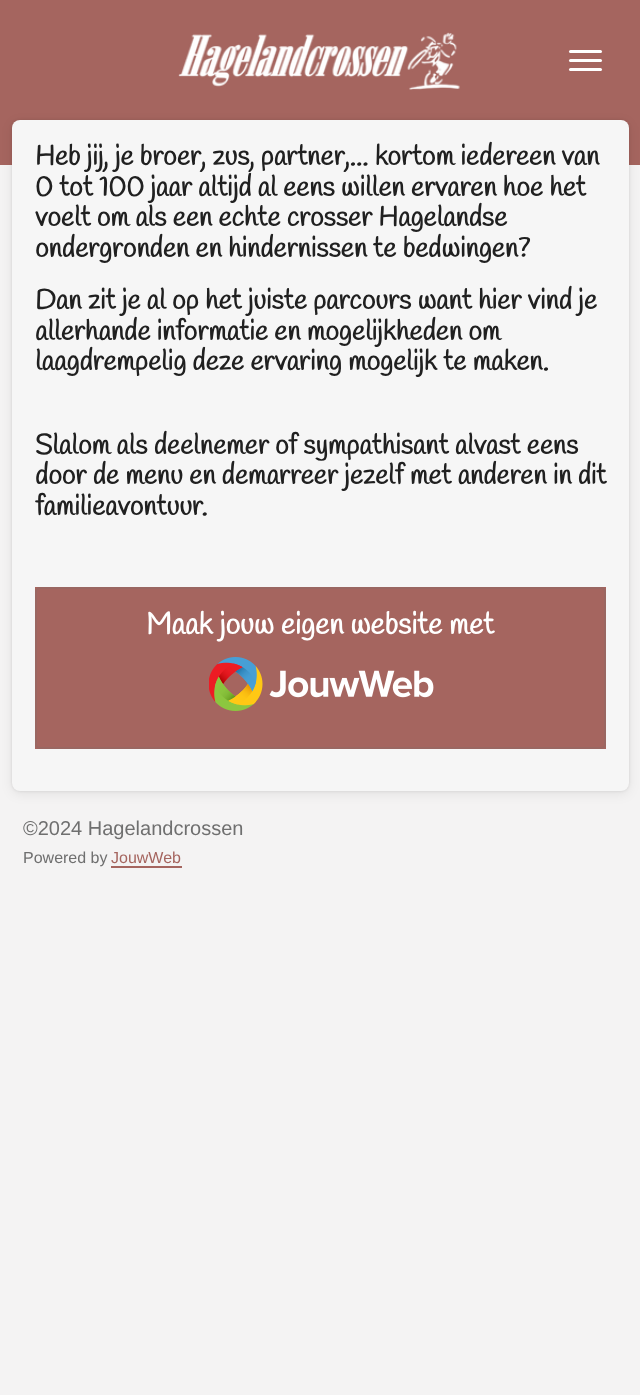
<svg xmlns="http://www.w3.org/2000/svg" width="640" height="1395" viewBox="0 0 640 1395">
  <style>
    .t1 { font: bold 27.75px Handlee; fill: #202020; }
    .t2 { font: bold 30px Handlee; fill: #fff; }
    .t3 { font: 20px Liberation Sans; fill: #6f6f6f; }
    .t4 { font: 16px Liberation Sans; fill: #6f6f6f; }
    .t5 { font: 16px Liberation Sans; fill: #a5655f; }
  </style>
  <rect width="100%" height="100%" fill="#f4f3f3"/>
  <rect x="0" y="0" width="640" height="165" fill="#a5655f"/>
  <image x="178" y="32" width="282" height="58" href="images/1.png"/>
  <rect x="569" y="59" width="33" height="3" rx="1.5" fill="#fff"/>
  <rect x="569" y="50" width="33" height="3" rx="1.5" fill="#fff"/>
  <rect x="569" y="68" width="33" height="3" rx="1.5" fill="#fff"/>
  <rect x="12" y="120" width="617" height="671" rx="8" fill="#0000001a" filter="blur(1.5px)"/>
  <rect x="12" y="123" width="617" height="671" rx="8" fill="#00000012" filter="blur(6px)"/>
  <rect x="12" y="120" width="617" height="671" rx="8" fill="#f6f6f6"/>
  <text x="35" y="165" class="t1">Heb jij, je broer, zus, partner,... kortom iedereen van</text>
  <text x="35" y="196" class="t1">0 tot 100 jaar altijd al eens willen ervaren hoe het</text>
  <text x="35" y="226" class="t1">voelt om als een echte crosser Hagelandse</text>
  <text x="35" y="257" class="t1">ondergronden en hindernissen te bedwingen?</text>
  <text x="35" y="309" class="t1">Dan zit je al op het juiste parcours want hier vind je</text>
  <text x="35" y="340" class="t1">allerhande informatie en mogelijkheden om</text>
  <text x="35" y="370" class="t1">laagdrempelig deze ervaring mogelijk te maken.</text>
  <text x="35" y="454" class="t1">Slalom als deelnemer of sympathisant alvast eens</text>
  <text x="35" y="484" class="t1">door de menu en demarreer jezelf met anderen in dit</text>
  <text x="35" y="515" class="t1">familieavontuur.</text>
  <rect x="35" y="587" width="571" height="162" fill="#a5655f"/>
  <rect x="36" y="588" width="569" height="160" rx="4" fill="none" stroke="#9a6762" stroke-width="2"/>
  <text x="146" y="634" class="t2">Maak jouw eigen website met</text>
  <image x="209" y="657" width="225" height="54" href="images/2.png"/>
  <text x="23" y="835" class="t3">©2024 Hagelandcrossen</text>
  <text x="23" y="863" class="t4">Powered by</text>
  <text x="111" y="863" class="t5">JouwWeb</text>
  <rect x="111" y="866" width="71" height="2" fill="#a5655f"/>
</svg>
